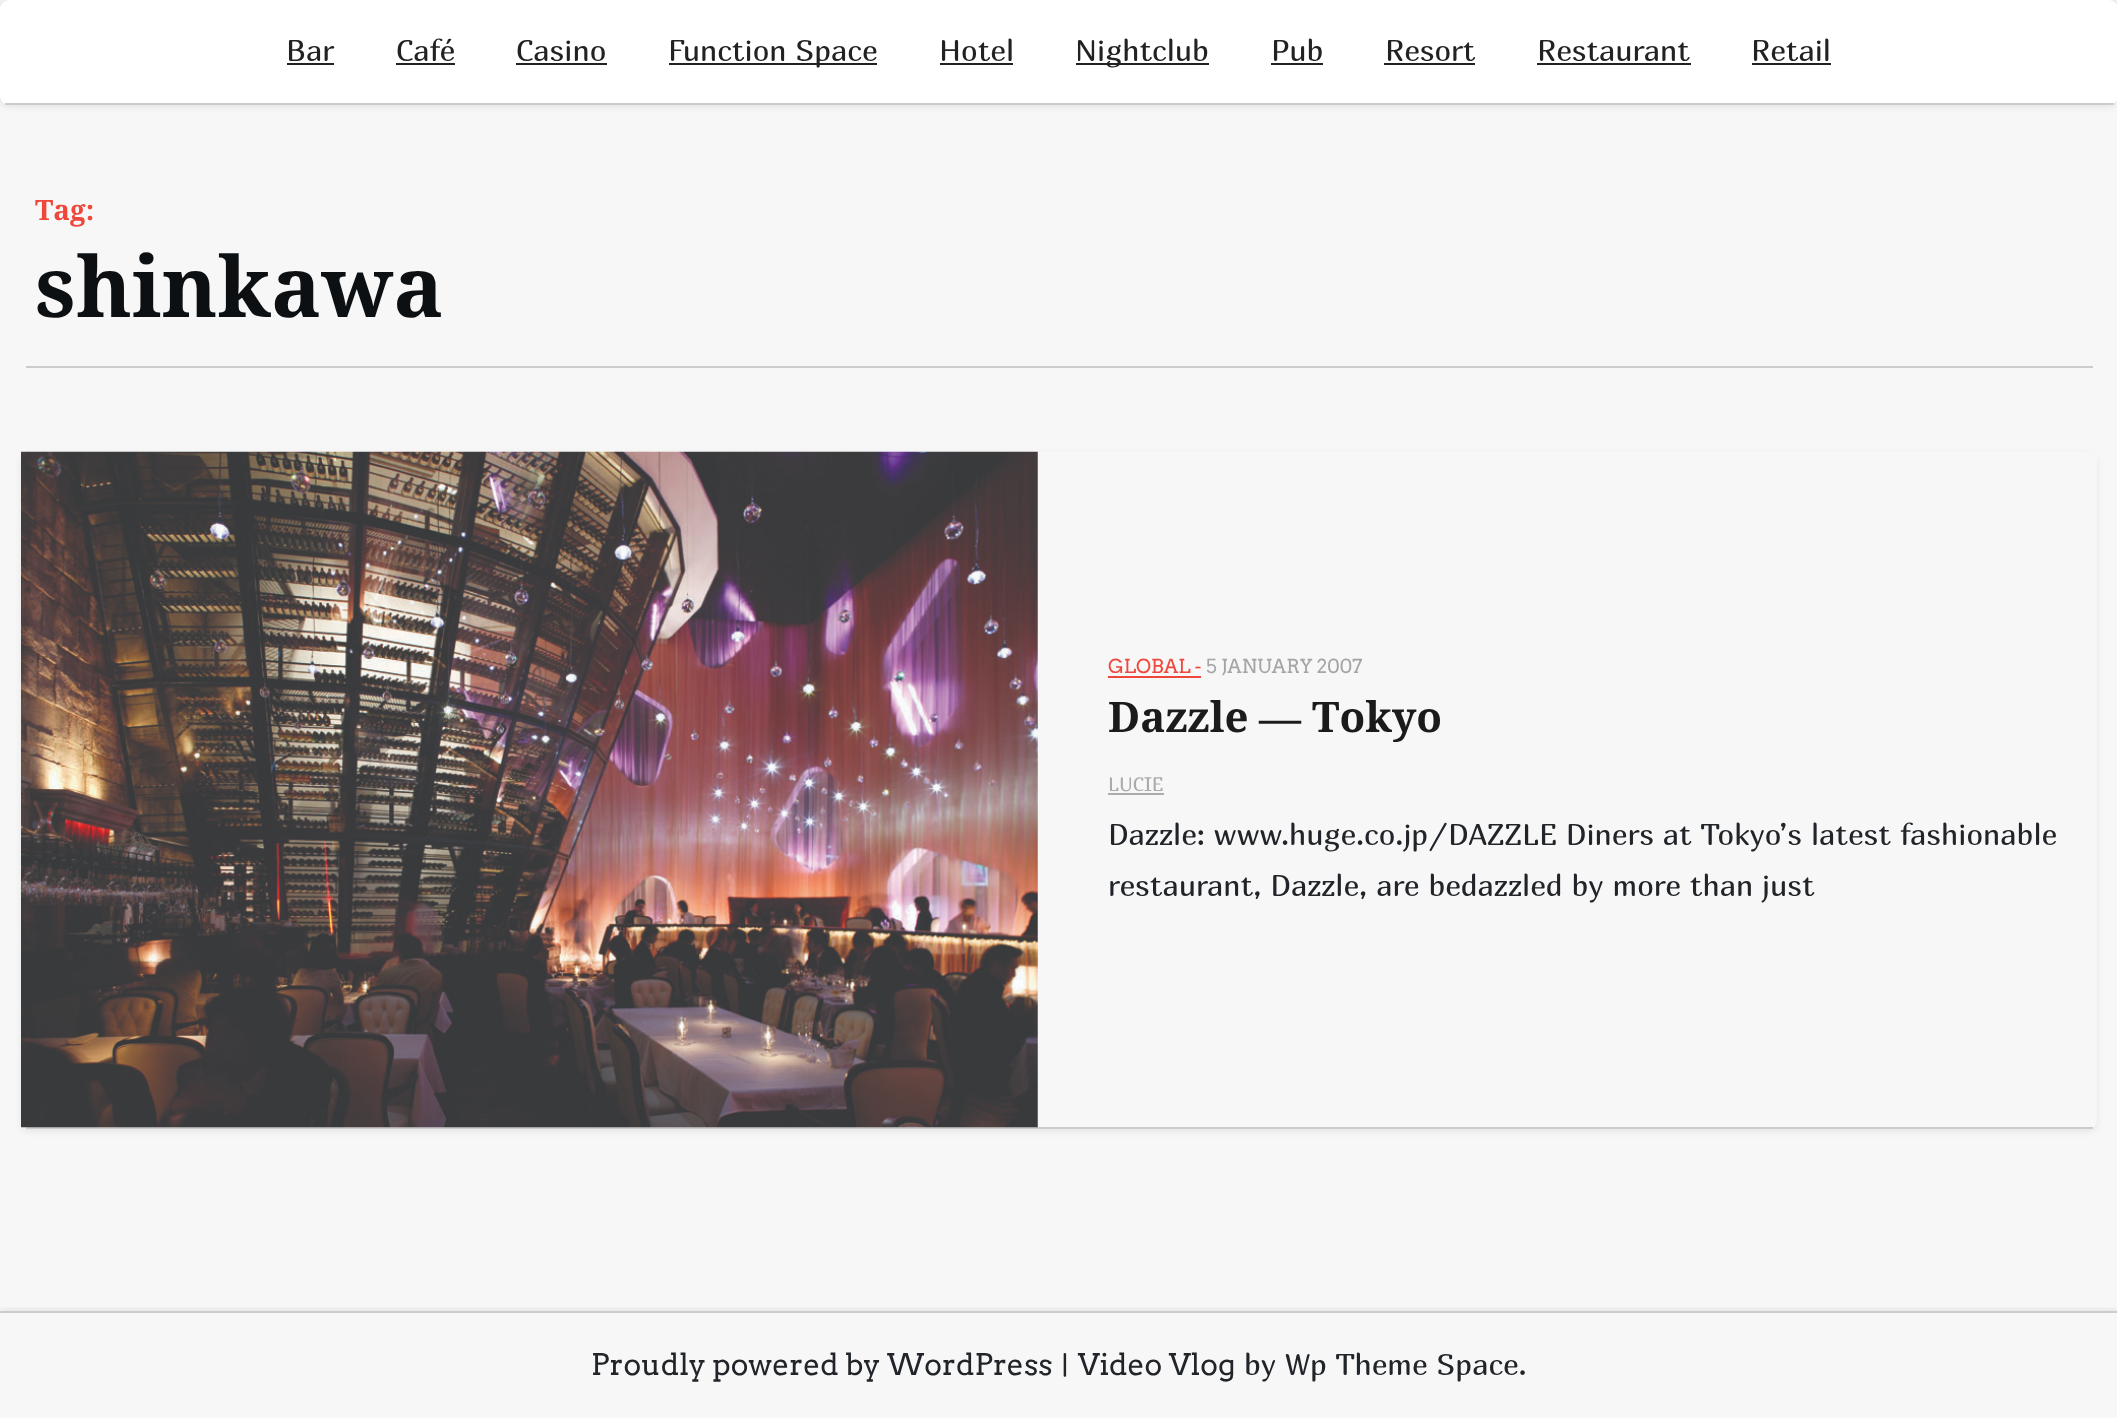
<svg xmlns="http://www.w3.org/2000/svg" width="2117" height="1418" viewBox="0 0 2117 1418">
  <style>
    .t1 { font: 29.75px Marmelad; fill: #222; }
    .t2 { font: bold 28px Koh Santepheap; fill: #f0473c; }
    .t3 { font: bold 84px Koh Santepheap; fill: #0d1013; }
    .t4 { font: 19.25px Arvo; fill: #f0473c; }
    .t5 { font: 19.25px Arvo; fill: #a5a5a5; }
    .t6 { font: bold 42px Koh Santepheap; fill: #1b1b1b; }
    .t7 { font: bold 42px Liberation Serif; fill: #1b1b1b; }
    .t8 { font: 19.25px Marmelad; fill: #ababab; }
    .t9 { font: 29.75px Marmelad; fill: #212529; }
    .t10 { font: 29.75px Arvo; fill: #212529; }
  </style>
  <defs>
    <clipPath id="clip1"><path d="M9 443H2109V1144H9ZM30 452H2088C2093 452 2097 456 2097 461V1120C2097 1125 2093 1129 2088 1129H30C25 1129 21 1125 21 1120V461C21 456 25 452 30 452Z" clip-rule="evenodd"/></clipPath>
    <clipPath id="clip2"><rect x="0" y="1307" width="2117" height="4"/></clipPath>
  </defs>
  <rect width="100%" height="100%" fill="#f7f7f7"/>
  <rect x="0" y="0" width="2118" height="105" rx="9" fill="#0000001f" filter="blur(4.5px)"/>
  <rect x="0" y="0" width="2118" height="105" rx="9" fill="#fff"/>
  <rect x="5" y="103" width="2109" height="2" fill="#ccc"/>
  <text x="286" y="61" class="t1">Bar</text>
  <rect x="287" y="63" width="47" height="2" fill="#222"/>
  <text x="396" y="61" class="t1">Café</text>
  <rect x="396" y="63" width="59" height="2" fill="#222"/>
  <text x="516" y="61" class="t1">Casino</text>
  <rect x="516" y="63" width="91" height="2" fill="#222"/>
  <rect x="669" y="63" width="208" height="2" fill="#222"/>
  <text x="668" y="61" class="t1">Function Space</text>
  <text x="939" y="61" class="t1">Hotel</text>
  <rect x="940" y="63" width="73" height="2" fill="#222"/>
  <rect x="1076" y="63" width="133" height="2" fill="#222"/>
  <text x="1075" y="61" class="t1">Nightclub</text>
  <text x="1271" y="61" class="t1">Pub</text>
  <rect x="1271" y="63" width="52" height="2" fill="#222"/>
  <text x="1385" y="61" class="t1">Resort</text>
  <rect x="1384" y="63" width="91" height="2" fill="#222"/>
  <text x="1537" y="61" class="t1">Restaurant</text>
  <rect x="1537" y="63" width="154" height="2" fill="#222"/>
  <text x="1751" y="61" class="t1">Retail</text>
  <rect x="1752" y="63" width="79" height="2" fill="#222"/>
  <rect x="26" y="366" width="2067" height="2" fill="#ccc"/>
  <text x="35" y="220" class="t2">Tag:</text>
  <text x="35" y="317" class="t3">shinkawa</text>
  <g clip-path="url(#clip1)">
    <rect x="21" y="455" width="2076" height="677" rx="9" fill="#00000012" filter="blur(3.5px)"/>
  </g>
  <rect x="26" y="1127" width="2067" height="2" fill="#ccc"/>
  <image x="21" y="451" width="1017" height="677" href="images/1.png"/>
  <text x="1108" y="673" class="t4">GLOBAL -</text>
  <rect x="1108" y="676" width="93" height="2" fill="#f0473c"/>
  <text x="1206" y="673" class="t5">5 JANUARY 2007</text>
  <text x="1108" y="732" class="t6">Dazzle</text>
  <text x="1259" y="732" class="t7">—</text>
  <text x="1312" y="732" class="t6">Tokyo</text>
  <text x="1108" y="791" class="t8">LUCIE</text>
  <rect x="1108" y="793" width="56" height="2" fill="#ababab"/>
  <text x="1108" y="845" class="t9">Dazzle: www.huge.co.jp/DAZZLE Diners at Tokyo’s latest fashionable</text>
  <text x="1108" y="896" class="t9">restaurant, Dazzle, are bedazzled by more than just</text>
  <g clip-path="url(#clip2)">
    <rect x="0" y="1311" width="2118" height="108" fill="#0000001f" filter="blur(4.5px)"/>
  </g>
  <rect x="0" y="1311" width="2117" height="2" fill="#ccc"/>
  <text x="591" y="1375" class="t10">Proudly powered by WordPress</text>
  <text x="1061" y="1375" class="t9">|</text>
  <text x="1078" y="1375" class="t10">Video Vlog</text>
  <text x="1244" y="1375" class="t9">by Wp Theme Space.</text>
</svg>
